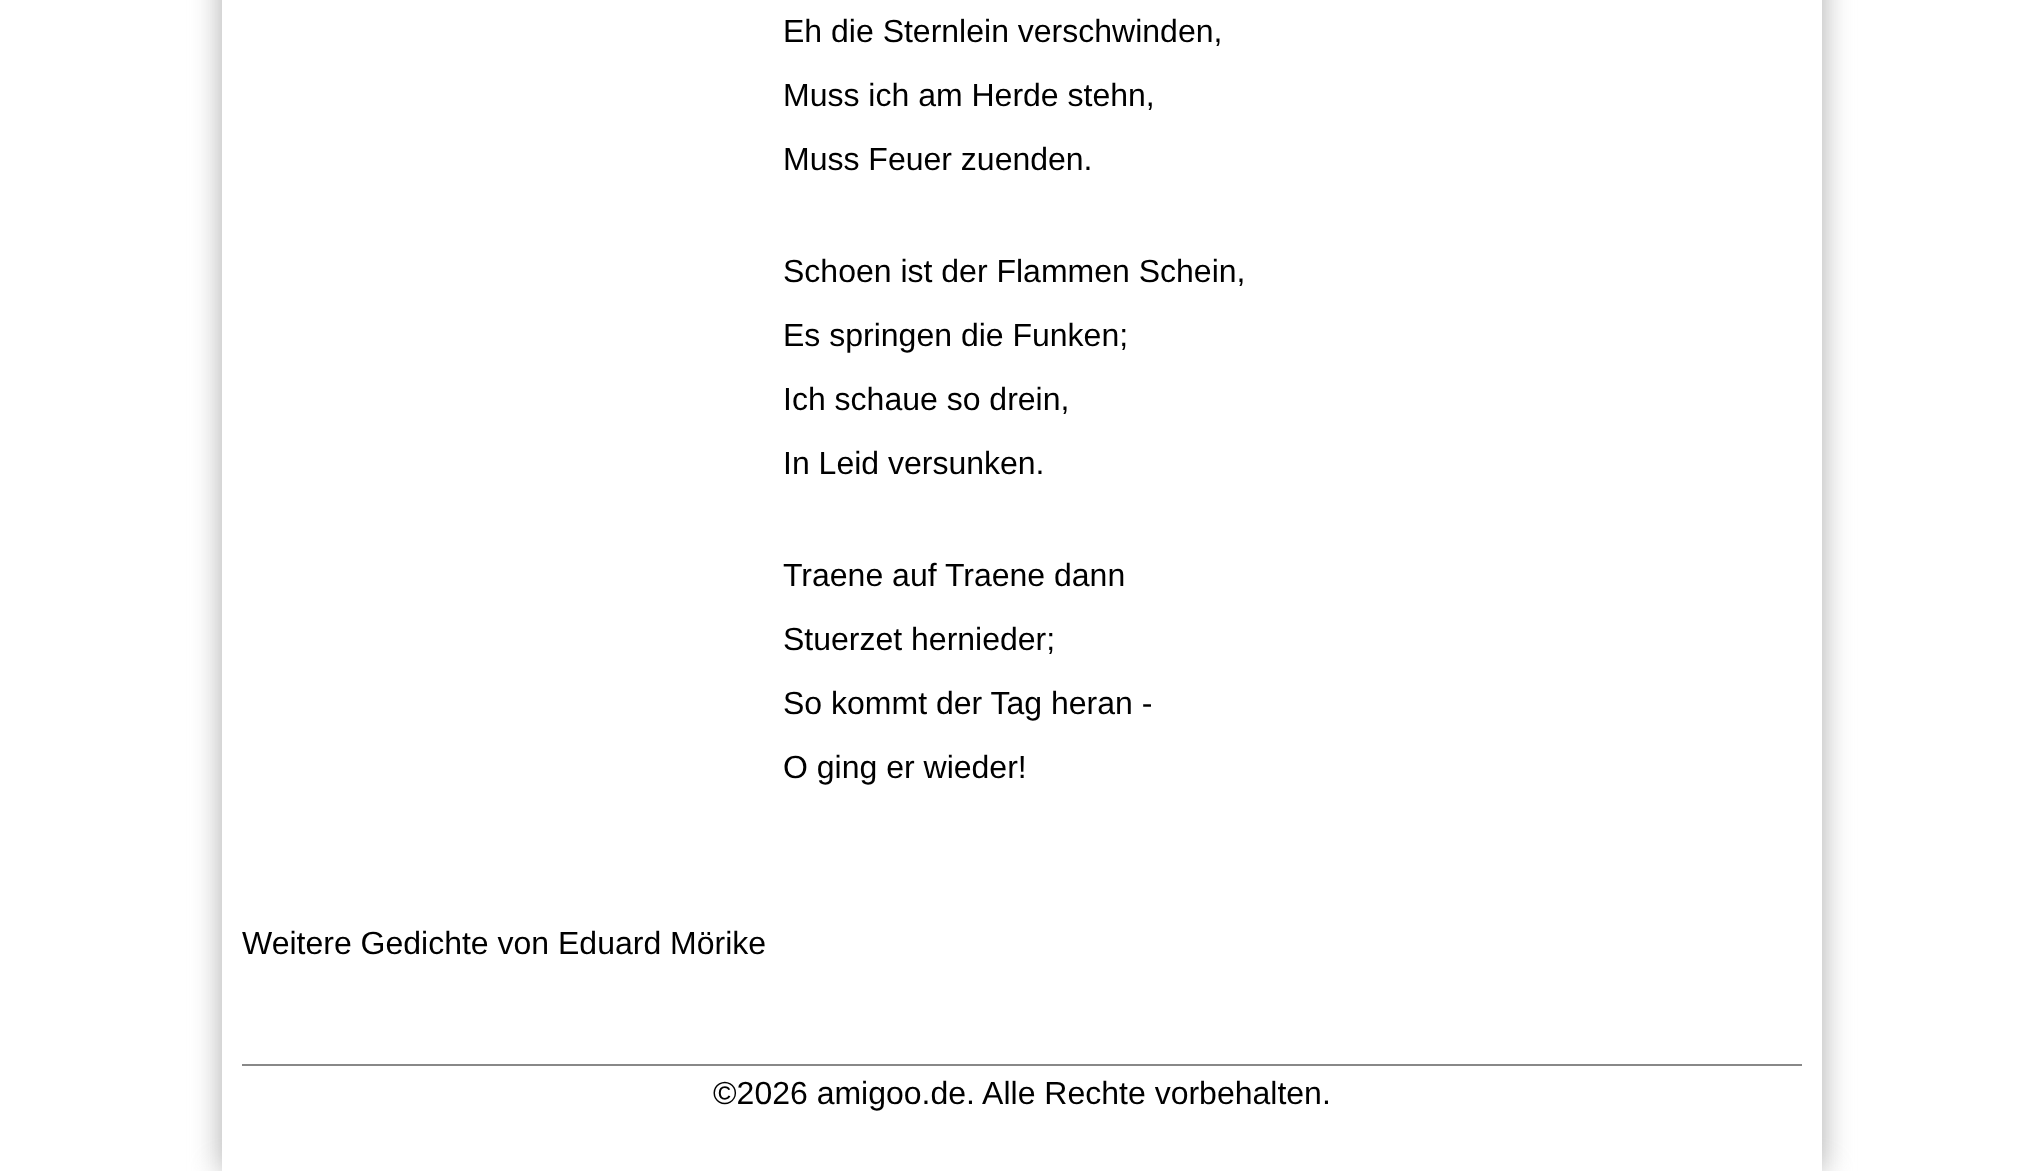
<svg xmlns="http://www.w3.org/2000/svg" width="2044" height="1171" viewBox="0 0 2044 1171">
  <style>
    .t1 { font: 32px Liberation Sans; fill: #000; }
  </style>
  <defs>
    <clipPath id="clip1"><path d="M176 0H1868V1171H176ZM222-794H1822V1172H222Z" clip-rule="evenodd"/></clipPath>
  </defs>
  <rect width="100%" height="100%" fill="#fff"/>
  <g clip-path="url(#clip1)">
    <rect x="222" y="-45" width="1600" height="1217" fill="#aaa" filter="blur(15px)"/>
  </g>
  <text x="783" y="42" class="t1">Eh die Sternlein verschwinden,</text>
  <text x="783" y="106" class="t1">Muss ich am Herde stehn,</text>
  <text x="783" y="170" class="t1">Muss Feuer zuenden.</text>
  <text x="783" y="282" class="t1">Schoen ist der Flammen Schein,</text>
  <text x="783" y="346" class="t1">Es springen die Funken;</text>
  <text x="783" y="410" class="t1">Ich schaue so drein,</text>
  <text x="783" y="474" class="t1">In Leid versunken.</text>
  <text x="783" y="586" class="t1">Traene auf Traene dann</text>
  <text x="783" y="650" class="t1">Stuerzet hernieder;</text>
  <text x="783" y="714" class="t1">So kommt der Tag heran -</text>
  <text x="783" y="778" class="t1">O ging er wieder!</text>
  <text x="242" y="954" class="t1">Weitere Gedichte von Eduard Mörike</text>
  <rect x="242" y="1064" width="1560" height="2" fill="#888"/>
  <text x="713" y="1104" class="t1">©2026 amigoo.de. Alle Rechte vorbehalten.</text>
</svg>
